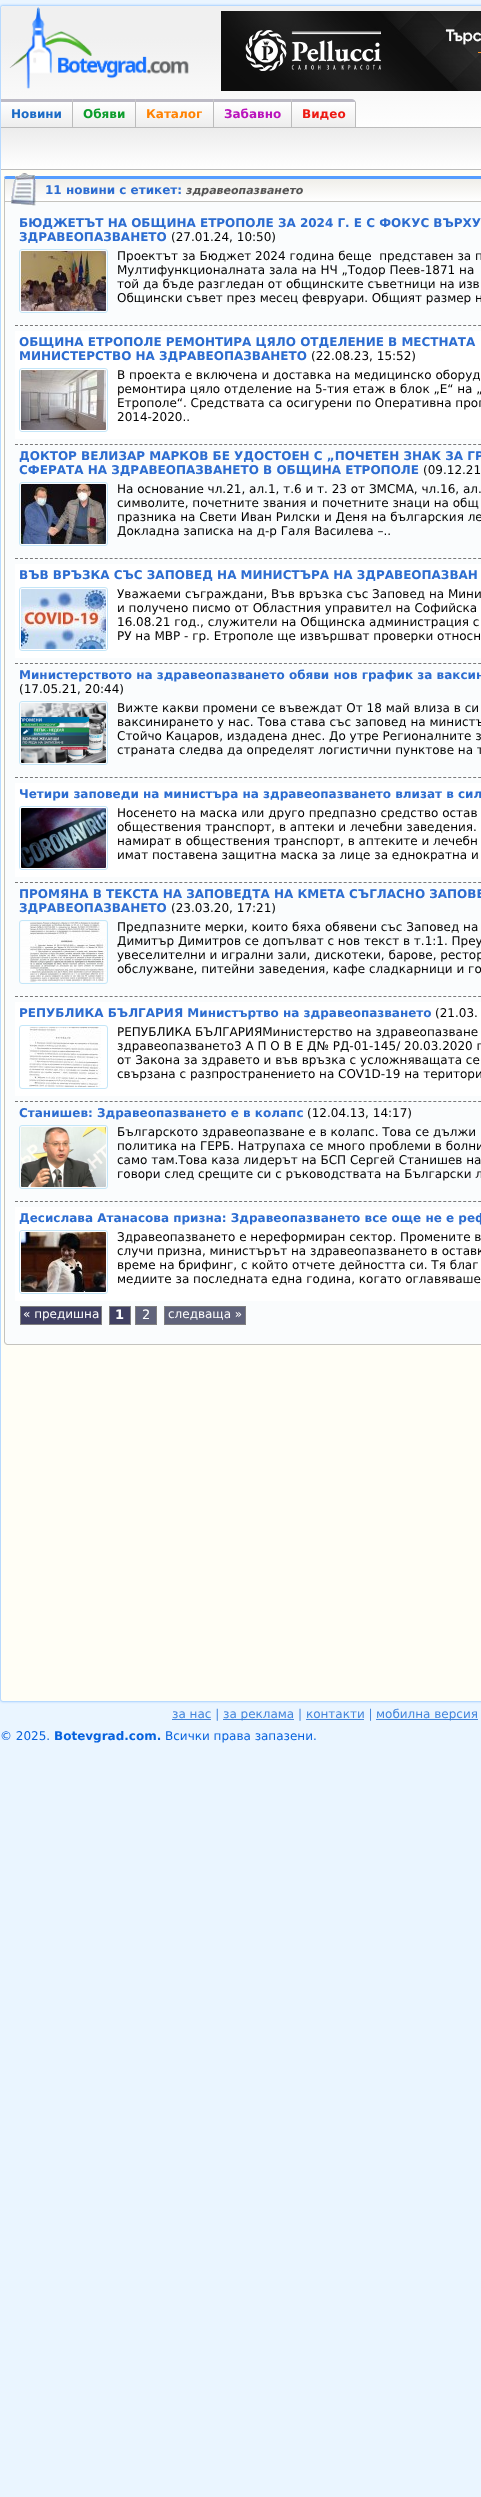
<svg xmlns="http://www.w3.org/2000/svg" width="481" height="2497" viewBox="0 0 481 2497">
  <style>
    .t1 { font: bold 12px DejaVu Sans; fill: #1b6ac6; }
    .t2 { font: bold 12px DejaVu Sans; fill: #0d9d2c; }
    .t3 { font: bold 12px DejaVu Sans; fill: #ff8304; }
    .t4 { font: bold 12px DejaVu Sans; fill: #ba14bc; }
    .t5 { font: bold 12px DejaVu Sans; fill: #ed1a13; }
    .t6 { font: bold 12px DejaVu Sans; fill: #2d6dd1; }
    .t7 { font: italic bold 11px DejaVu Sans; fill: #555; }
    .t8 { font: 12px DejaVu Sans; fill: #000; }
    .t9 { font: 12px DejaVu Sans; fill: #fff; }
    .t10 { font: bold 13px DejaVu Sans; fill: #fff; }
    .t11 { font: 13px DejaVu Sans; fill: #fff; }
    .t12 { font: 12px DejaVu Sans; fill: #4285dc; }
    .t13 { font: 12px DejaVu Sans; fill: #0762de; }
    .t14 { font: bold 12px DejaVu Sans; fill: #0762de; }
  </style>
  <defs>
    <linearGradient id="g1" gradientUnits="userSpaceOnUse" x1="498" y1="6" x2="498" y2="128"><stop offset="0.26" stop-color="#f0f0f0"/><stop offset="1" stop-color="#fefefe"/></linearGradient>
    <linearGradient id="g2" gradientUnits="userSpaceOnUse" x1="37" y1="102" x2="37" y2="127"><stop offset="0" stop-color="#fff"/><stop offset="1" stop-color="#ededed"/></linearGradient>
    <linearGradient id="g3" gradientUnits="userSpaceOnUse" x1="104" y1="102" x2="104" y2="127"><stop offset="0" stop-color="#fff"/><stop offset="1" stop-color="#ededed"/></linearGradient>
    <linearGradient id="g4" gradientUnits="userSpaceOnUse" x1="175" y1="102" x2="175" y2="127"><stop offset="0" stop-color="#fff"/><stop offset="1" stop-color="#ededed"/></linearGradient>
    <linearGradient id="g5" gradientUnits="userSpaceOnUse" x1="253" y1="102" x2="253" y2="127"><stop offset="0" stop-color="#fff"/><stop offset="1" stop-color="#ededed"/></linearGradient>
    <clipPath id="clip1"><path d="M292 99H352C354 99 356 101 356 103V128H292Z"/></clipPath>
    <linearGradient id="g6" gradientUnits="userSpaceOnUse" x1="324" y1="77" x2="324" y2="102"><stop offset="0" stop-color="#fff"/><stop offset="1" stop-color="#ededed"/></linearGradient>
    <linearGradient id="g7" gradientUnits="userSpaceOnUse" x1="324" y1="102" x2="324" y2="127"><stop offset="0" stop-color="#fff"/><stop offset="1" stop-color="#ededed"/></linearGradient>
    <linearGradient id="g8" gradientUnits="userSpaceOnUse" x1="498" y1="128" x2="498" y2="169"><stop offset="0" stop-color="#ececec"/><stop offset="1" stop-color="#fff"/></linearGradient>
    <linearGradient id="g9" gradientUnits="userSpaceOnUse" x1="346" y1="179" x2="346" y2="201"><stop offset="0" stop-color="#efeee9"/><stop offset="1" stop-color="#fff"/></linearGradient>
  </defs>
  <rect width="100%" height="100%" fill="#eaf5ff"/>
  <rect x="0" y="5" width="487" height="1697" rx="3" fill="#b0d6ff" filter="blur(1px)"/>
  <rect x="0.5" y="5.5" width="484" height="1696" rx="2.5" fill="#fffef6" stroke="#b8daff"/>
  <rect x="1" y="6" width="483" height="122" rx="3" fill="url(#g1)"/>
  <image x="9" y="7" width="180" height="82" href="images/1.png"/>
  <image x="221" y="11" width="260" height="80" href="images/2.png"/>
  <rect x="1" y="102" width="71" height="25" fill="url(#g2)"/>
  <path d="M1 99H73L72 102H1Z" fill="#bdbbc6"/>
  <path d="M73 99V128L72 127V102Z" fill="#bcbcbc"/>
  <rect x="1" y="127" width="72" height="1" fill="#bcbcbc"/>
  <text x="11" y="118" class="t1">Новини</text>
  <rect x="73" y="102" width="62" height="25" fill="url(#g3)"/>
  <path d="M73 99H136L135 102H73Z" fill="#bdbbc6"/>
  <path d="M136 99V128L135 127V102Z" fill="#bcbcbc"/>
  <rect x="73" y="127" width="63" height="1" fill="#bcbcbc"/>
  <text x="83" y="118" class="t2">Обяви</text>
  <rect x="136" y="102" width="77" height="25" fill="url(#g4)"/>
  <path d="M136 99H214L213 102H136Z" fill="#bdbbc6"/>
  <path d="M214 99V128L213 127V102Z" fill="#bcbcbc"/>
  <rect x="136" y="127" width="78" height="1" fill="#bcbcbc"/>
  <text x="146" y="118" class="t3">Каталог</text>
  <rect x="214" y="102" width="77" height="25" fill="url(#g5)"/>
  <path d="M214 99H292L291 102H214Z" fill="#bdbbc6"/>
  <path d="M292 99V128L291 127V102Z" fill="#bcbcbc"/>
  <rect x="214" y="127" width="78" height="1" fill="#bcbcbc"/>
  <text x="224" y="118" class="t4">Забавно</text>
  <g clip-path="url(#clip1)">
    <rect x="352" y="99" width="4" height="3" fill="url(#g6)"/>
  </g>
  <rect x="292" y="102" width="64" height="25" fill="url(#g7)"/>
  <path d="M292 99V102H353H355V101C355 100 353 99 352 99Z" fill="#bdbbc6"/>
  <rect x="355" y="127" width="126" height="1" fill="#bcbcbc"/>
  <path d="M355 127V102.5L355.5 101C356 101.5 356 102.5 356 103V128Z" fill="#bcbcbc"/>
  <path d="M356 128L355 127H292V128Z" fill="#bcbcbc"/>
  <text x="302" y="118" class="t5">Видео</text>
  <rect x="1" y="128" width="480" height="41" fill="url(#g8)"/>
  <rect x="1" y="169" width="480" height="1" fill="#bcbcbc"/>
  <path d="M7 179H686V1342C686 1343 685 1344 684 1344H7C6 1344 5 1343 5 1342V179Z" fill="#fafcfd"/>
  <path d="M7 176C6 176 5 176 4 177L5 179H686L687 177C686 176 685 176 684 176Z" fill="#559dff"/>
  <path d="M7 1345H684L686 1344L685 1343L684 1344H7L6 1343L5 1344Z" fill="#c4c3be"/>
  <path d="M4 179V1342L5 1344L6 1343L5 1342V179L4 177Z" fill="#c4c3be"/>
  <rect x="5" y="179" width="476" height="22" fill="url(#g9)"/>
  <rect x="5" y="201" width="476" height="1" fill="#c4c3be"/>
  <image x="11" y="173" width="25" height="33" href="images/3.png"/>
  <text x="45" y="194" class="t6">11 новини с етикет:</text>
  <text x="186" y="194" class="t7">здравеопазването</text>
  <text x="19" y="227" class="t6">БЮДЖЕТЪТ НА ОБЩИНА ЕТРОПОЛЕ ЗА 2024 Г. Е С ФОКУС ВЪРХУ</text>
  <text x="19" y="241" class="t6">ЗДРАВЕОПАЗВАНЕТО</text>
  <text x="171" y="241" class="t8">(27.01.24, 10:50)</text>
  <rect x="19.5" y="249.5" width="88" height="63" rx="2.5" fill="none" stroke="#c4e6f8"/>
  <image x="21" y="251" width="85" height="60" href="images/4.png"/>
  <text x="117" y="260" class="t8" xml:space="preserve">Проектът за Бюджет 2024 година беще  представен за п</text>
  <text x="117" y="274" class="t8">Мултифункционалната зала на НЧ „Тодор Пеев-1871 на</text>
  <text x="117" y="288" class="t8">той да бъде разгледан от общинските съветници на изв</text>
  <text x="117" y="302" class="t8">Общински съвет през месец февруари. Общият размер н</text>
  <path d="M15 325.5H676" fill="none" stroke="#7a7a7a" stroke-dasharray="3 1.98"/>
  <rect x="15" y="331" width="466" height="108" fill="#fff"/>
  <text x="19" y="346" class="t6">ОБЩИНА ЕТРОПОЛЕ РЕМОНТИРА ЦЯЛО ОТДЕЛЕНИЕ В МЕСТНАТА</text>
  <text x="19" y="360" class="t6">МИНИСТЕРСТВО НА ЗДРАВЕОПАЗВАНЕТО</text>
  <text x="311" y="360" class="t8">(22.08.23, 15:52)</text>
  <rect x="19.5" y="368.5" width="88" height="63" rx="2.5" fill="none" stroke="#c4e6f8"/>
  <image x="21" y="370" width="85" height="60" href="images/5.png"/>
  <text x="117" y="379" class="t8">В проекта е включена и доставка на медицинско оборуд</text>
  <text x="117" y="393" class="t8">ремонтира цяло отделение на 5-тия етаж в блок „Е“ на „</text>
  <text x="117" y="407" class="t8">Етрополе“. Средствата са осигурени по Оперативна прог</text>
  <text x="117" y="421" class="t8">2014-2020..</text>
  <path d="M15 444.5H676" fill="none" stroke="#7a7a7a" stroke-dasharray="3 1.98"/>
  <text x="19" y="460" class="t6">ДОКТОР ВЕЛИЗАР МАРКОВ БЕ УДОСТОЕН С „ПОЧЕТЕН ЗНАК ЗА ГР</text>
  <text x="19" y="474" class="t6">СФЕРАТА НА ЗДРАВЕОПАЗВАНЕТО В ОБЩИНА ЕТРОПОЛЕ</text>
  <text x="423" y="474" class="t8">(09.12.21</text>
  <rect x="19.5" y="482.5" width="88" height="63" rx="2.5" fill="none" stroke="#c4e6f8"/>
  <image x="21" y="484" width="85" height="60" href="images/6.png"/>
  <text x="117" y="493" class="t8">На основание чл.21, ал.1, т.6 и т. 23 от ЗМСМА, чл.16, ал.</text>
  <text x="117" y="507" class="t8">символите, почетните звания и почетните знаци на общ</text>
  <text x="117" y="521" class="t8">празника на Свети Иван Рилски и Деня на българския ле</text>
  <text x="117" y="535" class="t8">Докладна записка на д-р Галя Василева –..</text>
  <path d="M15 558.5H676" fill="none" stroke="#7a7a7a" stroke-dasharray="3 1.98"/>
  <rect x="15" y="564" width="466" height="94" fill="#fff"/>
  <text x="19" y="579" class="t6">ВЪВ ВРЪЗКА СЪС ЗАПОВЕД НА МИНИСТЪРА НА ЗДРАВЕОПАЗВАН</text>
  <rect x="19.5" y="587.5" width="88" height="63" rx="2.5" fill="none" stroke="#c4e6f8"/>
  <image x="21" y="589" width="85" height="60" href="images/7.png"/>
  <text x="117" y="598" class="t8">Уважаеми съграждани, Във връзка със Заповед на Мини</text>
  <text x="117" y="612" class="t8">и получено писмо от Областния управител на Софийска</text>
  <text x="117" y="626" class="t8">16.08.21 год., служители на Общинска администрация с</text>
  <text x="117" y="640" class="t8">РУ на МВР - гр. Етрополе ще извършват проверки относн</text>
  <path d="M15 663.5H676" fill="none" stroke="#7a7a7a" stroke-dasharray="3 1.98"/>
  <text x="19" y="679" class="t6">Министерството на здравеопазването обяви нов график за ваксин</text>
  <text x="19" y="693" class="t8">(17.05.21, 20:44)</text>
  <rect x="19.5" y="701.5" width="88" height="63" rx="2.5" fill="none" stroke="#c4e6f8"/>
  <image x="21" y="703" width="85" height="60" href="images/8.png"/>
  <text x="117" y="712" class="t8">Вижте какви промени се въвеждат От 18 май влиза в си</text>
  <text x="117" y="726" class="t8">ваксинирането у нас. Това става със заповед на министъ</text>
  <text x="117" y="740" class="t8">Стойчо Кацаров, издадена днес. До утре Регионалните з</text>
  <text x="117" y="754" class="t8">страната следва да определят логистични пунктове на т</text>
  <path d="M15 777.5H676" fill="none" stroke="#7a7a7a" stroke-dasharray="3 1.98"/>
  <rect x="15" y="783" width="466" height="94" fill="#fff"/>
  <text x="19" y="798" class="t6">Четири заповеди на министъра на здравеопазването влизат в сил</text>
  <rect x="19.5" y="806.5" width="88" height="63" rx="2.5" fill="none" stroke="#c4e6f8"/>
  <image x="21" y="808" width="85" height="60" href="images/9.png"/>
  <text x="117" y="817" class="t8">Носенето на маска или друго предпазно средство остав</text>
  <text x="117" y="831" class="t8">обществения транспорт, в аптеки и лечебни заведения.</text>
  <text x="117" y="845" class="t8">намират в обществения транспорт, в аптеките и лечебн</text>
  <text x="117" y="859" class="t8">имат поставена защитна маска за лице за еднократна и</text>
  <path d="M15 882.5H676" fill="none" stroke="#7a7a7a" stroke-dasharray="3 1.98"/>
  <text x="19" y="898" class="t6">ПРОМЯНА В ТЕКСТА НА ЗАПОВЕДТА НА КМЕТА СЪГЛАСНО ЗАПОВЕ</text>
  <text x="19" y="912" class="t6">ЗДРАВЕОПАЗВАНЕТО</text>
  <text x="171" y="912" class="t8">(23.03.20, 17:21)</text>
  <rect x="19.5" y="920.5" width="88" height="63" rx="2.5" fill="none" stroke="#c4e6f8"/>
  <image x="21" y="922" width="85" height="60" href="images/10.png"/>
  <text x="117" y="931" class="t8">Предпазните мерки, които бяха обявени със Заповед на</text>
  <text x="117" y="945" class="t8">Димитър Димитров се допълват с нов текст в т.1:1. Преу</text>
  <text x="117" y="959" class="t8">увеселителни и игрални зали, дискотеки, барове, рестор</text>
  <text x="117" y="973" class="t8">обслужване, питейни заведения, кафе сладкарници и го</text>
  <path d="M15 996.5H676" fill="none" stroke="#7a7a7a" stroke-dasharray="3 1.98"/>
  <rect x="15" y="1002" width="466" height="94" fill="#fff"/>
  <text x="19" y="1017" class="t6">РЕПУБЛИКА БЪЛГАРИЯ Министъртво на здравеопазването</text>
  <text x="435" y="1017" class="t8">(21.03.</text>
  <rect x="19.5" y="1025.5" width="88" height="63" rx="2.5" fill="none" stroke="#c4e6f8"/>
  <image x="29" y="1027" width="72" height="60" href="images/11.png"/>
  <text x="117" y="1036" class="t8">РЕПУБЛИКА БЪЛГАРИЯМинистерство на здравеопазване</text>
  <text x="117" y="1050" class="t8">здравеопазването3 А П О В Е Д№ РД-01-145/ 20.03.2020 г</text>
  <text x="117" y="1064" class="t8">от Закона за здравето и във връзка с усложняващата се</text>
  <text x="117" y="1078" class="t8">свързана с разпространението на COV1D-19 на територи</text>
  <path d="M15 1101.5H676" fill="none" stroke="#7a7a7a" stroke-dasharray="3 1.98"/>
  <text x="19" y="1117" class="t6">Станишев: Здравеопазването е в колапс</text>
  <text x="307" y="1117" class="t8">(12.04.13, 14:17)</text>
  <rect x="19.5" y="1125.5" width="88" height="63" rx="2.5" fill="none" stroke="#c4e6f8"/>
  <image x="21" y="1127" width="85" height="60" href="images/12.png"/>
  <text x="117" y="1136" class="t8">Българското здравеопазване е в колапс. Това се дължи</text>
  <text x="117" y="1150" class="t8">политика на ГЕРБ. Натрупаха се много проблеми в болни</text>
  <text x="117" y="1164" class="t8">само там.Това каза лидерът на БСП Сергей Станишев на</text>
  <text x="117" y="1178" class="t8">говори след срещите си с ръководствата на Български л</text>
  <path d="M15 1201.5H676" fill="none" stroke="#7a7a7a" stroke-dasharray="3 1.98"/>
  <rect x="15" y="1207" width="466" height="94" fill="#fff"/>
  <text x="19" y="1222" class="t6">Десислава Атанасова призна: Здравеопазването все още не е реф</text>
  <rect x="19.5" y="1230.5" width="88" height="63" rx="2.5" fill="none" stroke="#c4e6f8"/>
  <image x="21" y="1232" width="85" height="60" href="images/13.png"/>
  <text x="117" y="1241" class="t8">Здравеопазването е нереформиран сектор. Промените в</text>
  <text x="117" y="1255" class="t8">случи призна, министърът на здравеопазването в оставк</text>
  <text x="117" y="1269" class="t8">време на брифинг, с който отчете дейността си. Тя благ</text>
  <text x="117" y="1283" class="t8">медиите за последната една година, когато оглавяваше</text>
  <rect x="20.5" y="1306.5" width="81" height="18" fill="#404063" stroke="#808080"/>
  <text x="23" y="1318" class="t9">« предишна</text>
  <rect x="109.5" y="1306.5" width="21" height="18" fill="#404063" stroke="#808080"/>
  <text x="115" y="1319" class="t10">1</text>
  <rect x="135.5" y="1306.5" width="21" height="18" fill="#60637b" stroke="#808080"/>
  <text x="142" y="1319" class="t11">2</text>
  <rect x="164.5" y="1306.5" width="81" height="18" fill="#60637b" stroke="#808080"/>
  <text x="168" y="1318" class="t9">следваща »</text>
  <rect x="172" y="1719" width="39" height="1" fill="#4285dc"/>
  <text x="172" y="1718" class="t12">за нас |</text>
  <rect x="223" y="1719" width="71" height="1" fill="#4285dc"/>
  <text x="223" y="1718" class="t12">за реклама | контакти |</text>
  <rect x="376" y="1719" width="102" height="1" fill="#4285dc"/>
  <text x="376" y="1718" class="t12">мобилна версия</text>
  <rect x="306" y="1719" width="58" height="1" fill="#4285dc"/>
  <text x="0" y="1740" class="t13">© 2025.</text>
  <text x="54" y="1740" class="t14">Botevgrad.com.</text>
  <text x="165" y="1740" class="t13">Всички права запазени.</text>
</svg>
